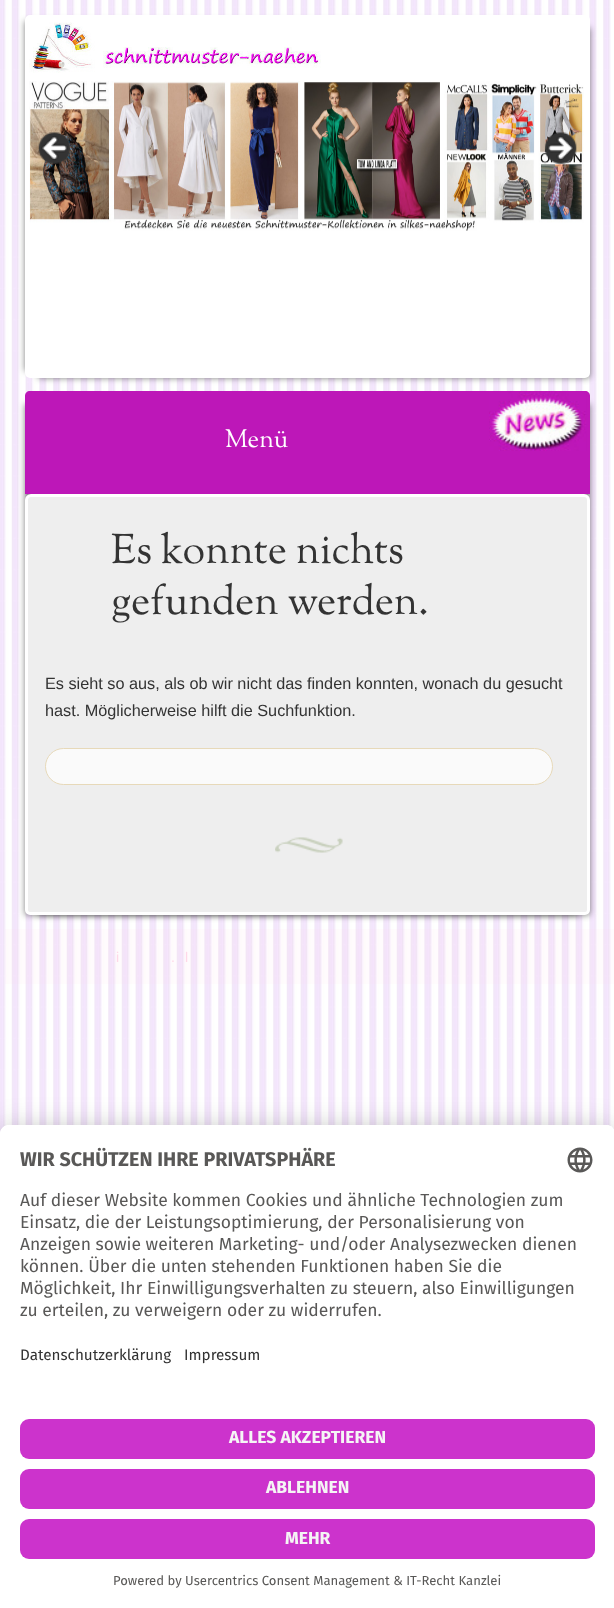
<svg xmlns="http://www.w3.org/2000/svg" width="614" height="1608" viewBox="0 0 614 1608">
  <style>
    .t1 { font: 25px Sorts Mill Goudy; fill: #fff; }
    .t2 { font: 41.25px Sorts Mill Goudy; fill: #333; }
    .t3 { font: 16.25px Liberation Sans; fill: #333; }
    .t4 { font: 14px Liberation Sans; fill: #ffd8e8; }
    .t5 { font: bold 19.75px Fira Sans; fill: #595857; }
    .t6 { font: 17.5px Fira Sans; fill: #595857; }
    .t7 { font: 15.25px Fira Sans; fill: #333; }
    .t8 { font: bold 17.5px Fira Sans; fill: #f5f5f5; }
    .t9 { font: 13.1px Fira Sans; fill: #595857; }
  </style>
  <rect width="100%" height="100%" fill="#fff"/>
  <image x="0" y="0" width="611" height="1134" href="images/1.png"/>
  <rect x="25" y="21" width="553" height="350" fill="#00000080" filter="blur(3px)"/>
  <rect x="38" y="28" width="552" height="350" fill="#00000080" filter="blur(3px)"/>
  <rect x="25" y="15" width="565" height="363" rx="5" fill="#fff"/>
  <image x="29" y="22" width="292" height="51" href="images/2.png"/>
  <image x="29" y="81" width="555" height="150" href="images/3.png"/>
  <image x="38" y="132" width="33" height="32" href="images/4.png"/>
  <image x="544" y="132" width="33" height="32" href="images/5.png"/>
  <rect x="25" y="404" width="553" height="511" fill="#00000080" filter="blur(3px)"/>
  <rect x="38" y="404" width="552" height="511" fill="#00000080" filter="blur(3px)"/>
  <path d="M30 391H585C588 391 590 393 590 396V494H25V396C25 393 27 391 30 391Z" fill="#bd17b8"/>
  <text x="225" y="447" class="t1">Menü</text>
  <image x="489" y="391" width="98" height="60" href="images/6.png"/>
  <path d="M31 495.5H584C586.5 495.5 588.5 497.5 588.5 500V910C588.5 912 587 913.5 585 913.5H30C28 913.5 26.5 912 26.5 910V500C26.5 497.5 28.5 495.5 31 495.5Z" fill="#eee" stroke="#fff" stroke-width="3"/>
  <image x="275" y="837" width="68" height="16" href="images/7.png"/>
  <text x="111" y="563" class="t2">Es konnte nichts</text>
  <text x="111" y="614" class="t2">gefunden werden.</text>
  <text x="45" y="689" class="t3">Es sieht so aus, als ob wir nicht das finden konnten, wonach du gesucht</text>
  <text x="45" y="716" class="t3">hast. Möglicherweise hilft die Suchfunktion.</text>
  <rect x="45.5" y="748.5" width="507" height="36" rx="18" fill="#fafafa" stroke="#e7d9b9"/>
  <rect x="5" y="929" width="609" height="55" fill="#ffd8e81a"/>
  <text x="116" y="962" class="t4">i</text>
  <text x="171" y="962" class="t4">.</text>
  <text x="185" y="962" class="t4">l</text>
  <rect x="0" y="1150" width="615" height="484" rx="9" fill="#0000004d" filter="blur(17.5px)"/>
  <rect x="0" y="1131" width="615" height="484" rx="9" fill="#00000038" filter="blur(16px)"/>
  <path d="M9 1125H606C611 1125 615 1129 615 1134V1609H0V1134C0 1129 4 1125 9 1125Z" fill="#fff"/>
  <path d="M9 1125H606C611 1125 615 1129 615 1134V1404H0V1134C0 1129 4 1125 9 1125Z" fill="#fff"/>
  <text x="20" y="1166" class="t5">WIR SCHÜTZEN IHRE PRIVATSPHÄRE</text>
  <image x="567" y="1147" width="26" height="26" href="images/8.png"/>
  <text x="20" y="1206" class="t6">Auf dieser Website kommen Cookies und ähnliche Technologien zum</text>
  <text x="20" y="1228" class="t6">Einsatz, die der Leistungsoptimierung, der Personalisierung von</text>
  <text x="20" y="1250" class="t6">Anzeigen sowie weiteren Marketing- und/oder Analysezwecken dienen</text>
  <text x="20" y="1272" class="t6">können. Über die unten stehenden Funktionen haben Sie die</text>
  <text x="20" y="1294" class="t6">Möglichkeit, Ihr Einwilligungsverhalten zu steuern, also Einwilligungen</text>
  <text x="20" y="1316" class="t6">zu erteilen, zu verweigern oder zu widerrufen.</text>
  <text x="20" y="1360" class="t7">Datenschutzerklärung</text>
  <text x="184" y="1360" class="t7">Impressum</text>
  <rect x="20" y="1419" width="575" height="40" rx="9" fill="#c3c"/>
  <text x="229" y="1443" class="t8">ALLES AKZEPTIEREN</text>
  <rect x="20" y="1469" width="575" height="40" rx="9" fill="#c3c"/>
  <text x="266" y="1493" class="t8">ABLEHNEN</text>
  <rect x="20" y="1519" width="575" height="40" rx="9" fill="#c3c"/>
  <text x="285" y="1544" class="t8">MEHR</text>
  <text x="113" y="1585" class="t9">Powered by Usercentrics Consent Management &amp; IT-Recht Kanzlei</text>
</svg>
